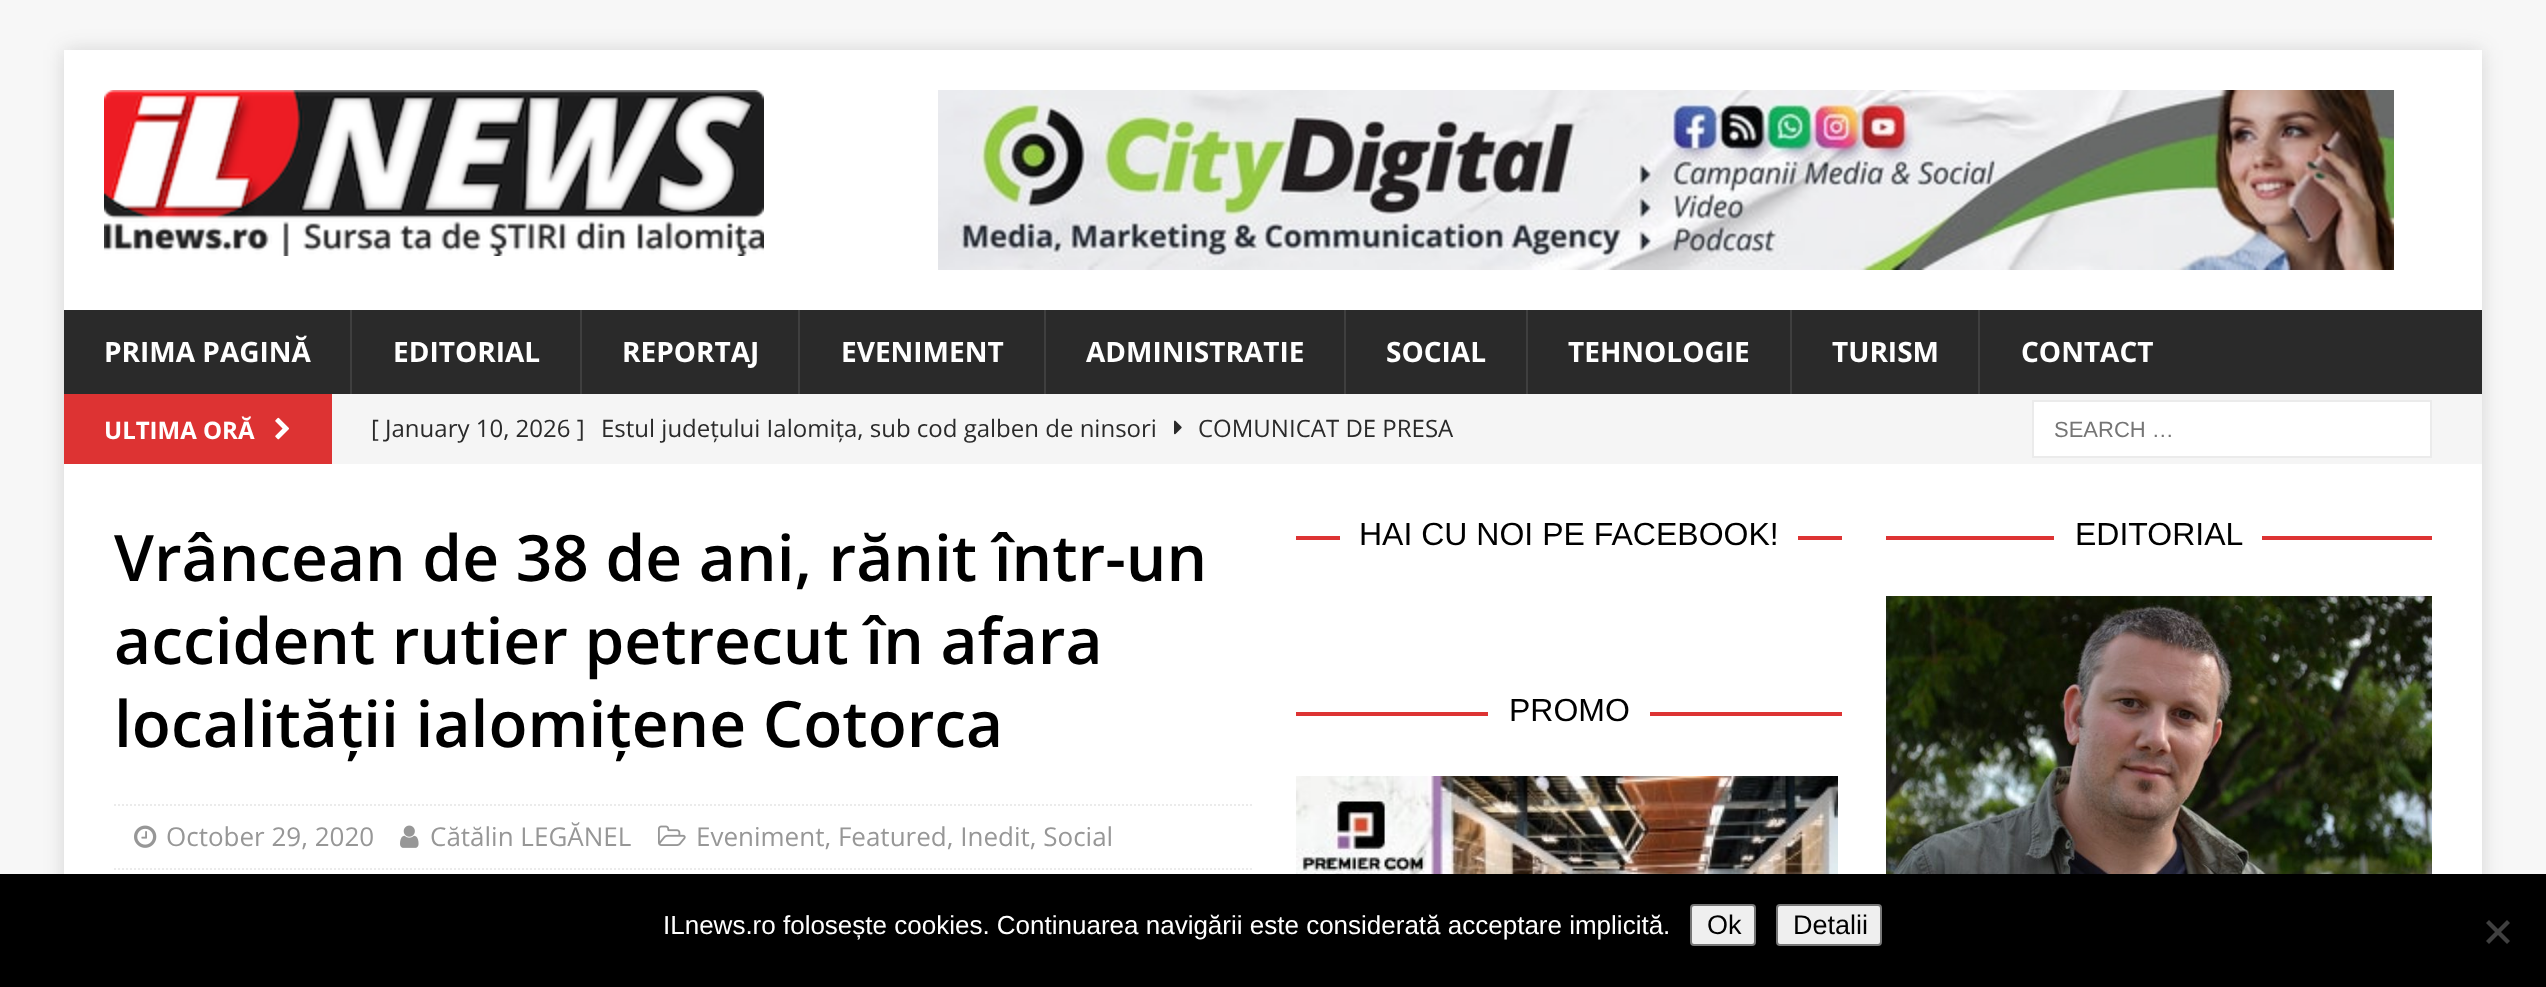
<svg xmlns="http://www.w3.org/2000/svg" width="2546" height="987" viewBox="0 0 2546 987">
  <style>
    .t1 { font: bold 28px Open Sans; fill: #fff; }
    .t2 { font: bold 24px Open Sans; fill: #fff; }
    .t3 { font: 24px Open Sans; fill: #2a2a2a; }
    .t4 { font: 22px Liberation Sans; fill: #757575; }
    .t5 { font: 600 64px Open Sans; fill: #000; }
    .t6 { font: 26px Open Sans; fill: #979797; }
    .t7 { font: 32px Liberation Sans; fill: #000; }
    .t8 { font: 26px Liberation Sans; fill: #fff; }
    .t9 { font: 27px Liberation Sans; fill: #000; }
  </style>
  <rect width="100%" height="100%" fill="#f7f7f7"/>
  <rect x="64" y="50" width="2418" height="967" fill="#3232322b" filter="blur(10px)"/>
  <rect x="64" y="50" width="2418" height="260" fill="#fff"/>
  <image x="104" y="90" width="660" height="166" href="images/1.png"/>
  <image x="938" y="90" width="1456" height="180" href="images/2.png"/>
  <rect x="64" y="310" width="2418" height="84" fill="#2a2a2a"/>
  <text x="104" y="362" class="t1">PRIMA PAGINĂ</text>
  <rect x="350" y="310" width="2" height="84" fill="#3f3f3f"/>
  <text x="393" y="362" class="t1">EDITORIAL</text>
  <rect x="580" y="310" width="2" height="84" fill="#3f3f3f"/>
  <text x="622" y="362" class="t1">REPORTAJ</text>
  <rect x="798" y="310" width="2" height="84" fill="#3f3f3f"/>
  <text x="841" y="362" class="t1">EVENIMENT</text>
  <rect x="1044" y="310" width="2" height="84" fill="#3f3f3f"/>
  <text x="1086" y="362" class="t1">ADMINISTRATIE</text>
  <rect x="1344" y="310" width="2" height="84" fill="#3f3f3f"/>
  <text x="1386" y="362" class="t1">SOCIAL</text>
  <rect x="1526" y="310" width="2" height="84" fill="#3f3f3f"/>
  <text x="1568" y="362" class="t1">TEHNOLOGIE</text>
  <rect x="1790" y="310" width="2" height="84" fill="#3f3f3f"/>
  <text x="1832" y="362" class="t1">TURISM</text>
  <rect x="1978" y="310" width="2" height="84" fill="#3f3f3f"/>
  <text x="2021" y="362" class="t1">CONTACT</text>
  <rect x="332" y="394" width="2150" height="70" fill="#f5f5f5"/>
  <rect x="64" y="394" width="268" height="70" fill="#d33"/>
  <text x="104" y="439" class="t2">ULTIMA ORĂ</text>
  <image x="275" y="417" width="14" height="23" href="images/3.png"/>
  <text x="371" y="437" class="t3">[ January 10, 2026 ]</text>
  <text x="601" y="437" class="t3">Estul județului Ialomița, sub cod galben de ninsori</text>
  <image x="1174" y="420" width="8" height="15" href="images/4.png"/>
  <text x="1198" y="437" class="t3">COMUNICAT DE PRESA</text>
  <rect x="2033" y="401" width="398" height="56" fill="#fff" stroke="#ebebeb" stroke-width="2"/>
  <text x="2054" y="437" class="t4">SEARCH …</text>
  <rect x="64" y="464" width="2418" height="410" fill="#fff"/>
  <text x="114" y="581" class="t5">Vrâncean de 38 de ani, rănit într-un</text>
  <text x="114" y="664" class="t5">accident rutier petrecut în afara</text>
  <text x="114" y="747" class="t5">localității ialomițene Cotorca</text>
  <path d="M114 805H1252" fill="none" stroke="#ebebeb" stroke-width="2" stroke-dasharray="2 2"/>
  <path d="M114 869H1252" fill="none" stroke="#ebebeb" stroke-width="2" stroke-dasharray="2 2"/>
  <image x="134" y="825" width="23" height="23" href="images/5.png"/>
  <text x="166" y="846" class="t6">October 29, 2020</text>
  <image x="400" y="825" width="19" height="23" href="images/6.png"/>
  <text x="430" y="846" class="t6">Cătălin LEGĂNEL</text>
  <image x="658" y="825" width="28" height="21" href="images/7.png"/>
  <text x="696" y="846" class="t6">Eveniment, Featured, Inedit, Social</text>
  <rect x="1296" y="536" width="546" height="4" fill="#d33"/>
  <rect x="1340" y="536" width="458" height="4" fill="#fff"/>
  <text x="1359" y="545" class="t7">HAI CU NOI PE FACEBOOK!</text>
  <rect x="1296" y="712" width="546" height="4" fill="#d33"/>
  <rect x="1488" y="712" width="162" height="4" fill="#fff"/>
  <text x="1509" y="721" class="t7">PROMO</text>
  <image x="1296" y="776" width="542" height="98" href="images/8.png"/>
  <rect x="1886" y="536" width="546" height="4" fill="#d33"/>
  <rect x="2054" y="536" width="208" height="4" fill="#fff"/>
  <text x="2075" y="545" class="t7">EDITORIAL</text>
  <image x="1886" y="596" width="546" height="278" href="images/9.png"/>
  <rect x="0" y="874" width="2546" height="113" fill="#000"/>
  <text x="663" y="934" class="t8">ILnews.ro folosește cookies. Continuarea navigării este considerată acceptare implicită.</text>
  <rect x="1691" y="905" width="64" height="40" rx="3" fill="#efefef" stroke="#767676" stroke-width="2"/>
  <text x="1707" y="934" class="t9">Ok</text>
  <rect x="1777" y="905" width="104" height="40" rx="3" fill="#efefef" stroke="#767676" stroke-width="2"/>
  <text x="1793" y="934" class="t9">Detalii</text>
  <path d="M2507 920L2510 923L2489 944L2486 941Z" fill="#404040"/>
  <path d="M2486 923L2489 920L2510 941L2507 944Z" fill="#404040"/>
</svg>
